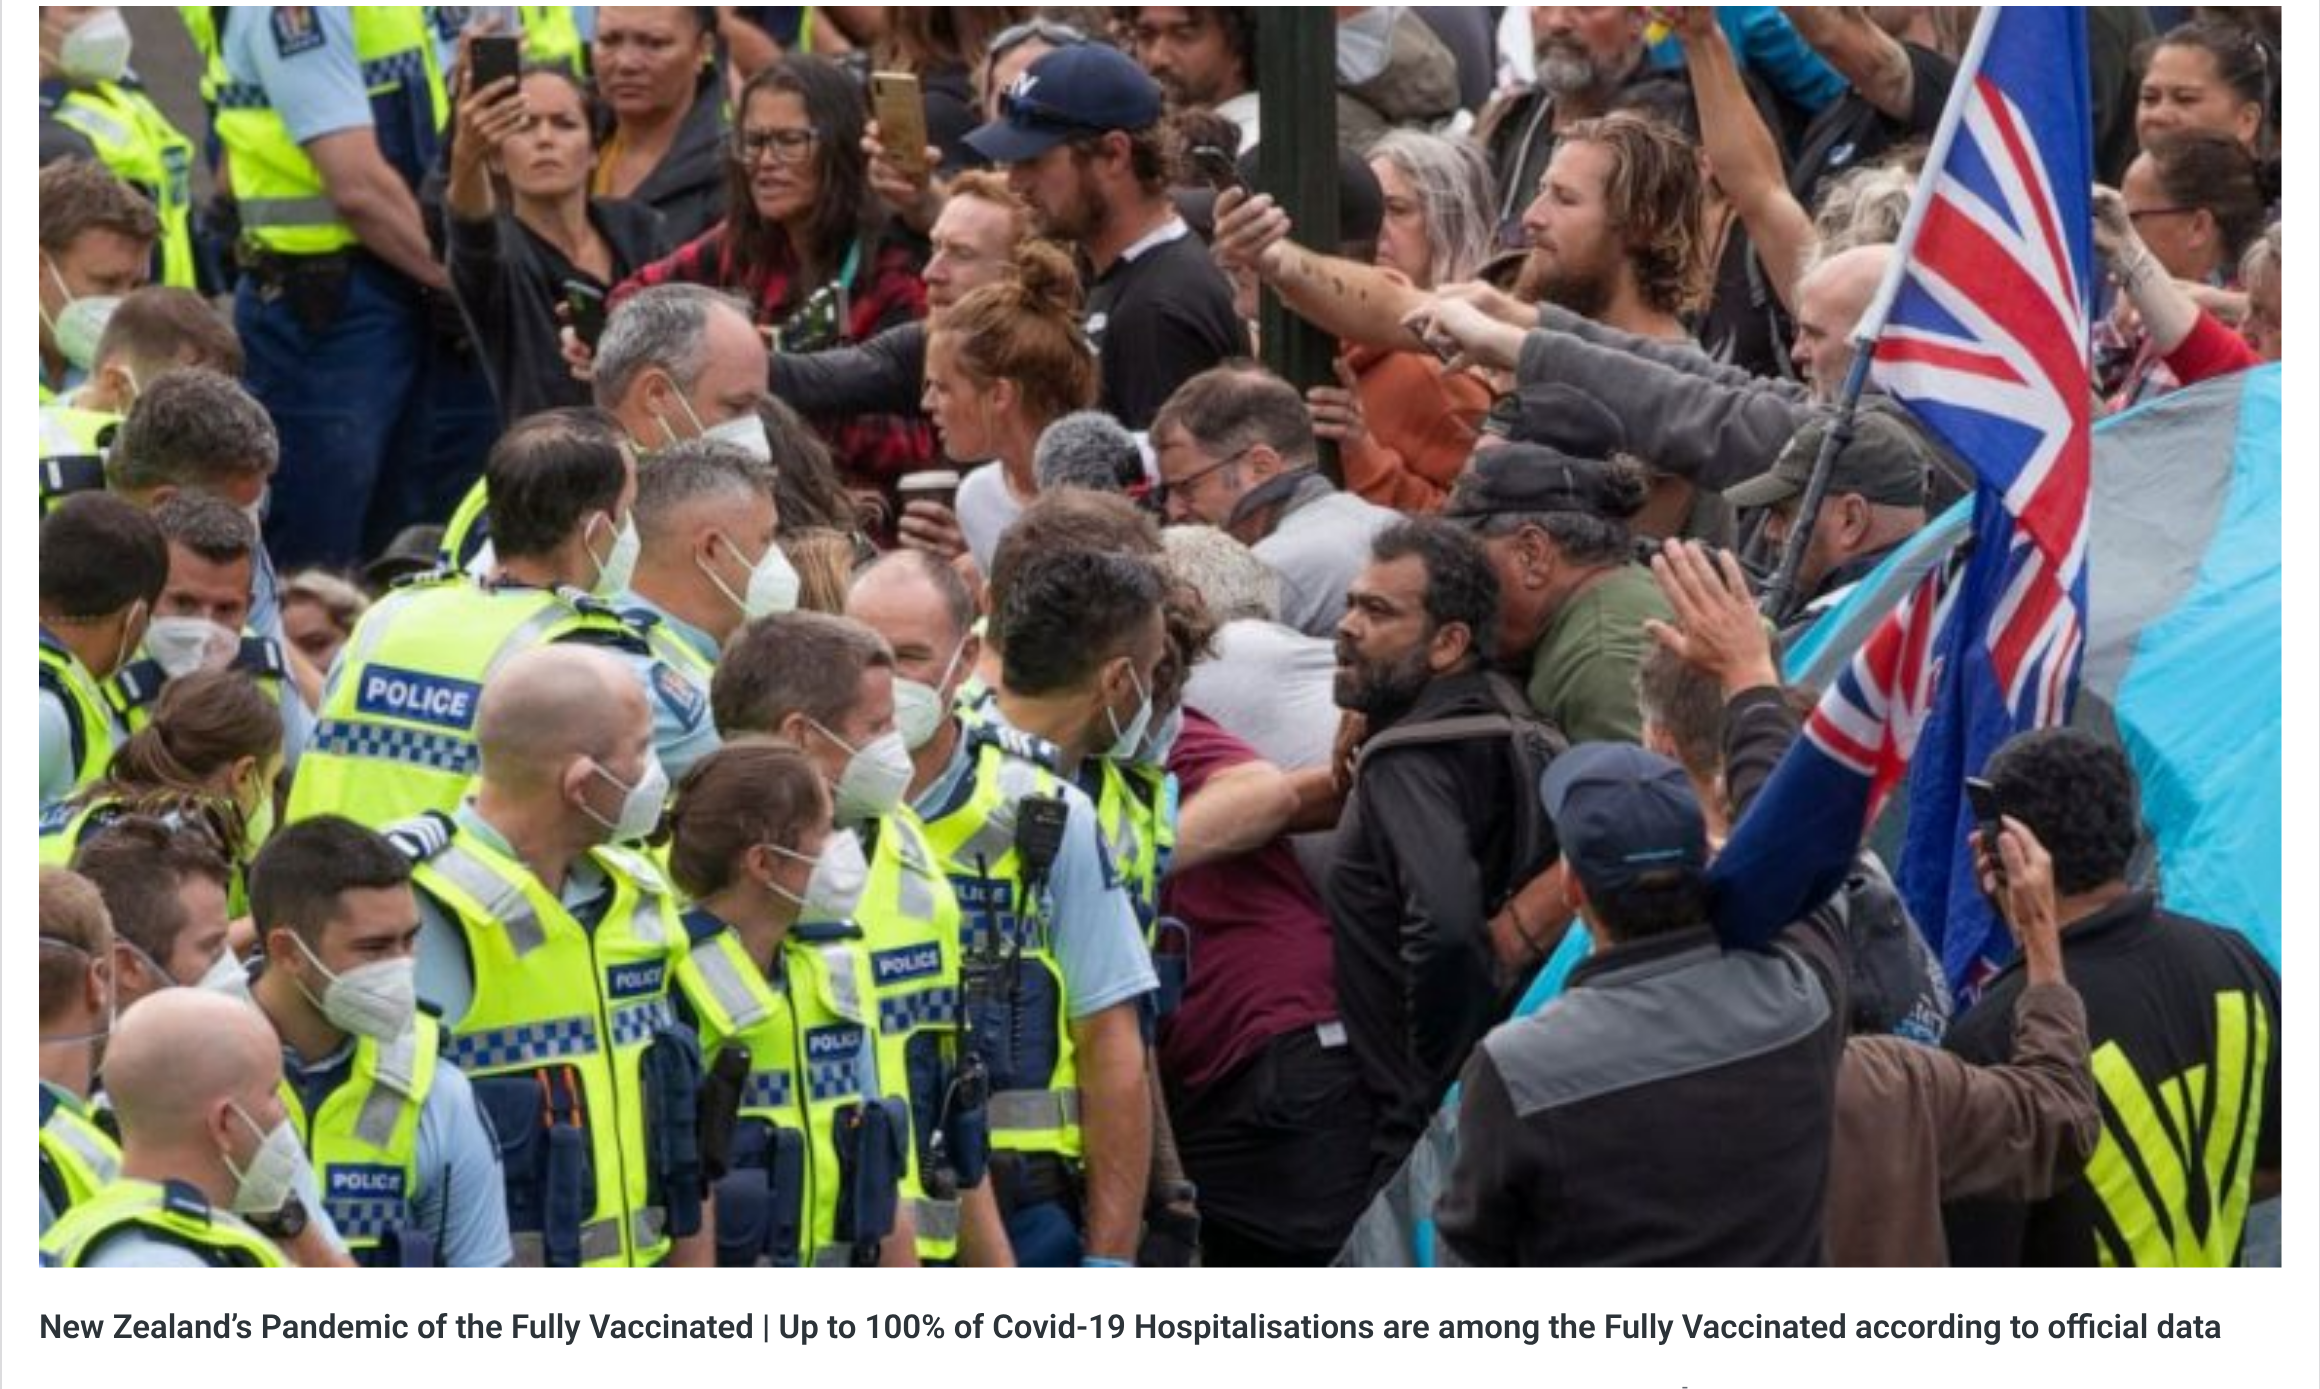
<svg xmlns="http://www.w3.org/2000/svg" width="2320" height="1389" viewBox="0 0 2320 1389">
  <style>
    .t1 { font: 600 33px Roboto; fill: #2c3338; }
    .t2 { font: 21px Roboto; fill: #646970; }
  </style>
  <rect width="100%" height="100%" fill="#fff"/>
  <rect x="1" y="-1" width="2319" height="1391" fill="none" stroke="#dcdcde" stroke-width="2"/>
  <image x="39" y="6" width="2243" height="1262" href="images/1.png"/>
  <text x="39" y="1338" class="t1">New Zealand’s Pandemic of the Fully Vaccinated | Up to 100% of Covid-19 Hospitalisations are among the Fully Vaccinated according to official data</text>
  <text x="1682" y="1394" class="t2">-</text>
</svg>
